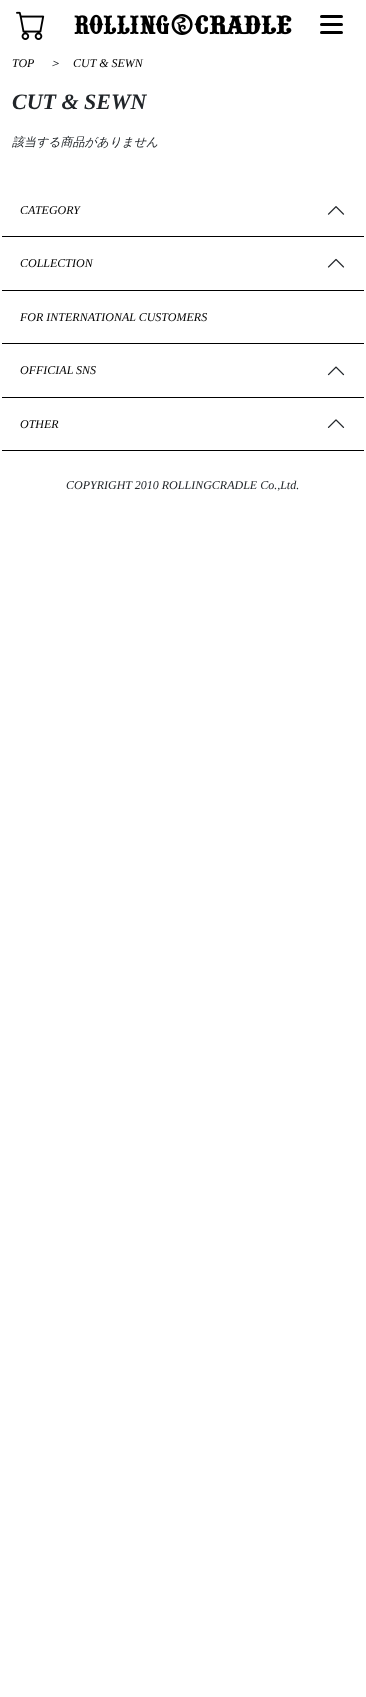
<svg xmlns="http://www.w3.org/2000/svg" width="366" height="1697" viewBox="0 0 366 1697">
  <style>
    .t1 { font: italic 12px Liberation Serif; fill: #000; }
    .t2 { font: italic 500 12px WenQuanYi Zen Hei; fill: #212529; }
    .t3 { font: italic bold 22px Liberation Serif; fill: #212529; }
    .t4 { font: italic 12px Liberation Serif; fill: #212529; }
  </style>
  <rect width="100%" height="100%" fill="#fff"/>
  <image x="16" y="11" width="29" height="29" href="images/1.png"/>
  <image x="74" y="14" width="218" height="21" href="images/2.png"/>
  <rect x="320" y="15" width="23" height="3" rx="1.5" fill="#000"/>
  <rect x="320" y="23" width="23" height="3" rx="1.5" fill="#000"/>
  <rect x="320" y="31" width="23" height="3" rx="1.5" fill="#000"/>
  <text x="12" y="67" class="t1">TOP</text>
  <text x="49" y="67" class="t2">＞</text>
  <text x="73" y="67" class="t1">CUT &amp; SEWN</text>
  <text x="12" y="109" class="t3">CUT &amp; SEWN</text>
  <text x="12" y="146" class="t2">該当する商品がありません</text>
  <rect x="2" y="236" width="362" height="1" fill="#000"/>
  <text x="20" y="214" class="t1">CATEGORY</text>
  <image x="327" y="206" width="18" height="9" href="images/3.png"/>
  <rect x="2" y="290" width="362" height="1" fill="#000"/>
  <text x="20" y="267" class="t1">COLLECTION</text>
  <image x="327" y="258" width="18" height="10" href="images/4.png"/>
  <rect x="2" y="343" width="362" height="1" fill="#000"/>
  <text x="20" y="321" class="t1">FOR INTERNATIONAL CUSTOMERS</text>
  <rect x="2" y="397" width="362" height="1" fill="#000"/>
  <text x="20" y="374" class="t1">OFFICIAL SNS</text>
  <image x="327" y="366" width="18" height="10" href="images/5.png"/>
  <rect x="2" y="450" width="362" height="1" fill="#000"/>
  <text x="20" y="428" class="t1">OTHER</text>
  <image x="327" y="419" width="18" height="9" href="images/6.png"/>
  <text x="66" y="489" class="t4">COPYRIGHT 2010 ROLLINGCRADLE Co.,Ltd.</text>
</svg>
